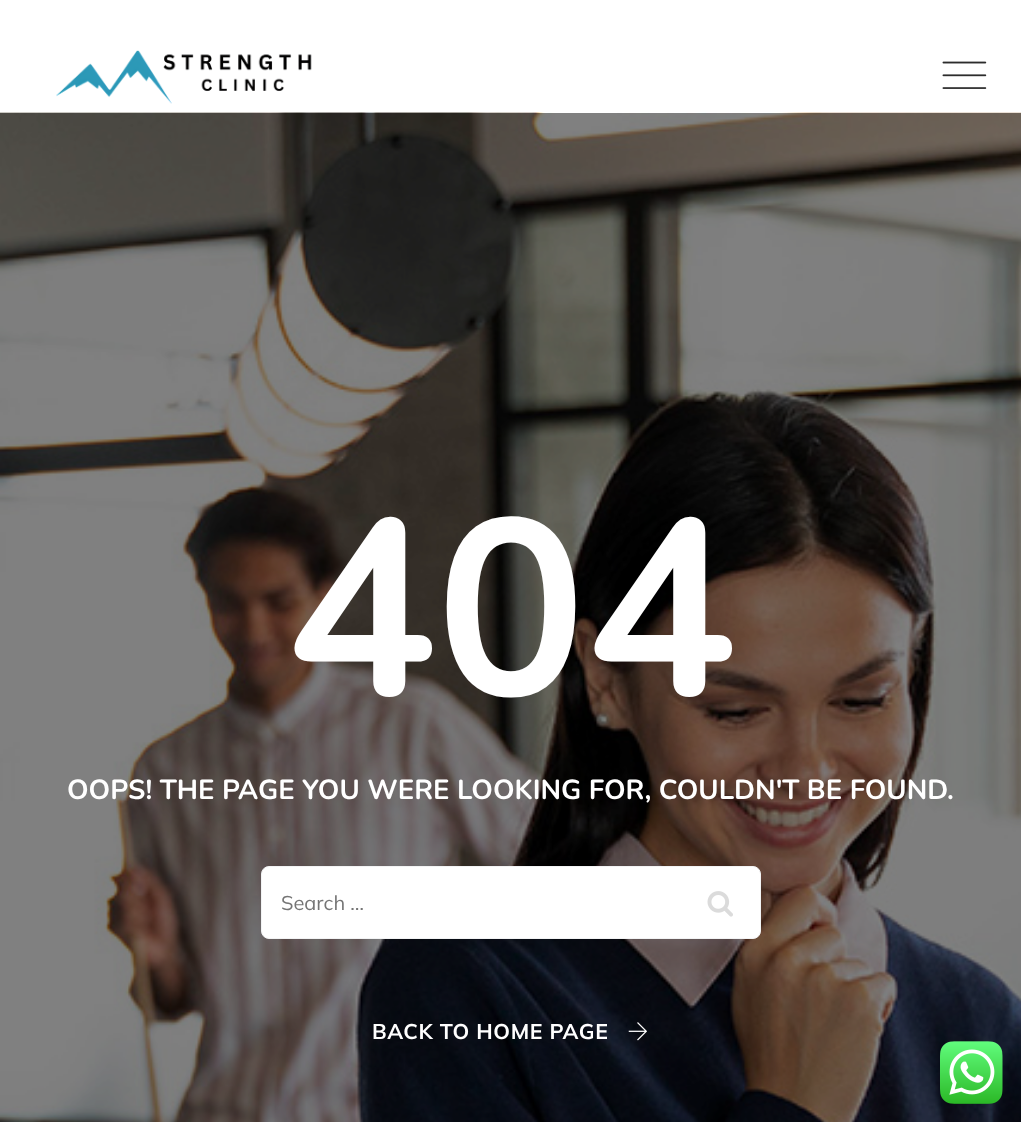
<svg xmlns="http://www.w3.org/2000/svg" width="1021" height="1122" viewBox="0 0 1021 1122">
  <style>
    .t1 { font: bold 250px Nunito; fill: #fff; }
    .t2 { font: bold 27.5px Nunito; fill: #fff; }
    .t3 { font: 20px Mulish; fill: #757575; }
    .t4 { font: bold 21.25px Mulish; letter-spacing: 0.6px; fill: #fff; }
  </style>
  <rect width="100%" height="100%" fill="#fff"/>
  <image x="56" y="50" width="256" height="54" href="images/1.png"/>
  <image x="942" y="61" width="45" height="28" href="images/2.png"/>
  <image x="0" y="112" width="1021" height="1010" href="images/3.png"/>
  <text x="286" y="695" class="t1">404</text>
  <text x="67" y="799" class="t2">OOPS! THE PAGE YOU WERE LOOKING FOR, COULDN'T BE FOUND.</text>
  <rect x="261.5" y="866.5" width="499" height="72" rx="7.5" fill="#fff" stroke="#f2f3f4"/>
  <text x="281" y="910" class="t3">Search …</text>
  <image x="707" y="891" width="26" height="26" href="images/4.png"/>
  <text x="372" y="1039" class="t4">BACK TO HOME PAGE</text>
  <image x="628" y="1022" width="19" height="19" href="images/5.png"/>
  <image x="940" y="1041" width="63" height="63" href="images/6.png"/>
</svg>
